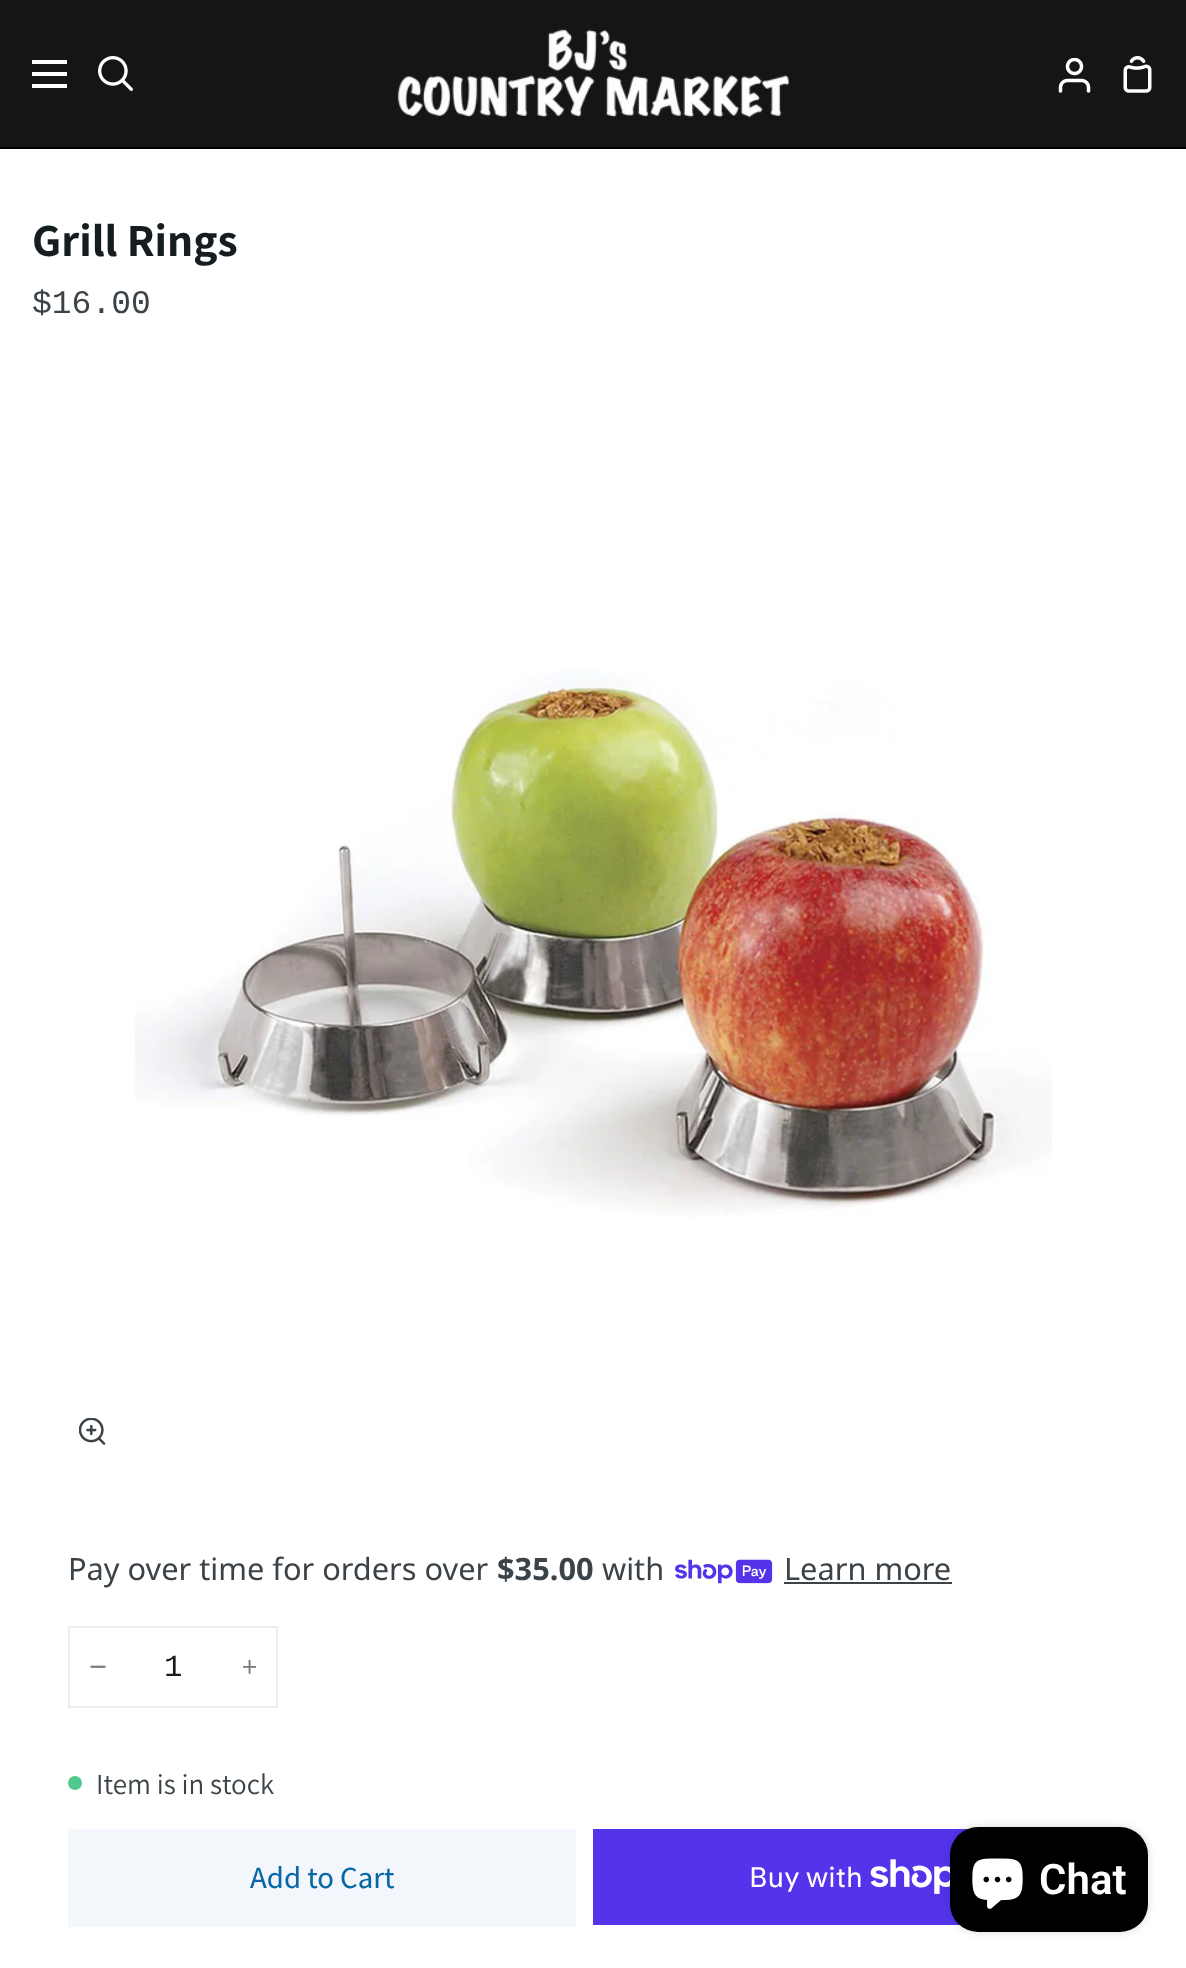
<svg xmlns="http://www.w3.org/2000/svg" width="1186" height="1968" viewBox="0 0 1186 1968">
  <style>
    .t1 { font: bold 46px Assistant; fill: #161d21; }
    .t2 { font: 33px Liberation Mono; fill: #3b4348; }
    .t3 { font: 30.75px Noto Sans; fill: #3b4348; }
    .t4 { font: bold 30.75px Noto Sans; fill: #3b4348; }
    .t5 { font: 30.75px Liberation Sans; fill: #767b7f; }
    .t6 { font: 30.75px Liberation Mono; fill: #161d21; }
    .t7 { font: 30.75px Assistant; fill: #767b7f; }
    .t8 { font: 29px Assistant; fill: #3b4348; }
    .t9 { font: 500 30.75px Assistant; fill: #0767a7; }
    .t10 { font: 28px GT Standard; fill: #fff; }
    .t11 { font: 600 42px Roboto; fill: #fff; }
  </style>
  <rect width="100%" height="100%" fill="#fff"/>
  <rect x="0" y="147" width="1186" height="2" fill="#000"/>
  <rect x="0" y="0" width="1186" height="147" fill="#131516"/>
  <rect x="32" y="60" width="35" height="4" fill="#fff"/>
  <rect x="32" y="72" width="35" height="4" fill="#fff"/>
  <rect x="32" y="84" width="35" height="4" fill="#fff"/>
  <image x="98" y="56" width="35" height="35" href="images/1.png"/>
  <image x="397" y="29" width="393" height="89" href="images/2.png"/>
  <image x="1058" y="58" width="33" height="35" href="images/3.png"/>
  <image x="1123" y="56" width="29" height="37" href="images/4.png"/>
  <text x="32" y="256" class="t1">Grill Rings</text>
  <text x="32" y="313" class="t2">$16.00</text>
  <image x="134" y="670" width="919" height="547" href="images/5.png"/>
  <image x="79" y="1418" width="27" height="27" href="images/6.png"/>
  <text x="68" y="1580" class="t3">Pay over time for orders over</text>
  <text x="497" y="1580" class="t4">$35.00</text>
  <text x="602" y="1580" class="t3">with</text>
  <image x="675" y="1559" width="98" height="25" href="images/7.png"/>
  <text x="784" y="1580" class="t3">Learn more</text>
  <rect x="784" y="1582" width="168" height="2" fill="#3b4348"/>
  <rect x="69" y="1627" width="208" height="80" fill="none" stroke="#ededed" stroke-width="2"/>
  <text x="89" y="1677" class="t5">−</text>
  <text x="164" y="1676" class="t6">1</text>
  <text x="242" y="1677" class="t7">+</text>
  <circle cx="75" cy="1783" r="7" fill="#51c88e"/>
  <text x="96" y="1794" class="t8">Item is in stock</text>
  <rect x="68" y="1829" width="508" height="98" fill="#f3f7fb"/>
  <text x="250" y="1888" class="t9">Add to Cart</text>
  <rect x="593" y="1829" width="375" height="96" fill="#5433eb"/>
  <text x="749" y="1887" class="t10">Buy with</text>
  <image x="870" y="1859" width="80" height="35" href="images/8.png"/>
  <rect x="950" y="1827" width="198" height="105" rx="28" fill="#00000026" filter="blur(4.5px)"/>
  <rect x="950" y="1827" width="198" height="105" rx="28" fill="#000"/>
  <image x="972" y="1858" width="51" height="51" href="images/9.png"/>
  <text x="1039" y="1894" class="t11">Chat</text>
</svg>
